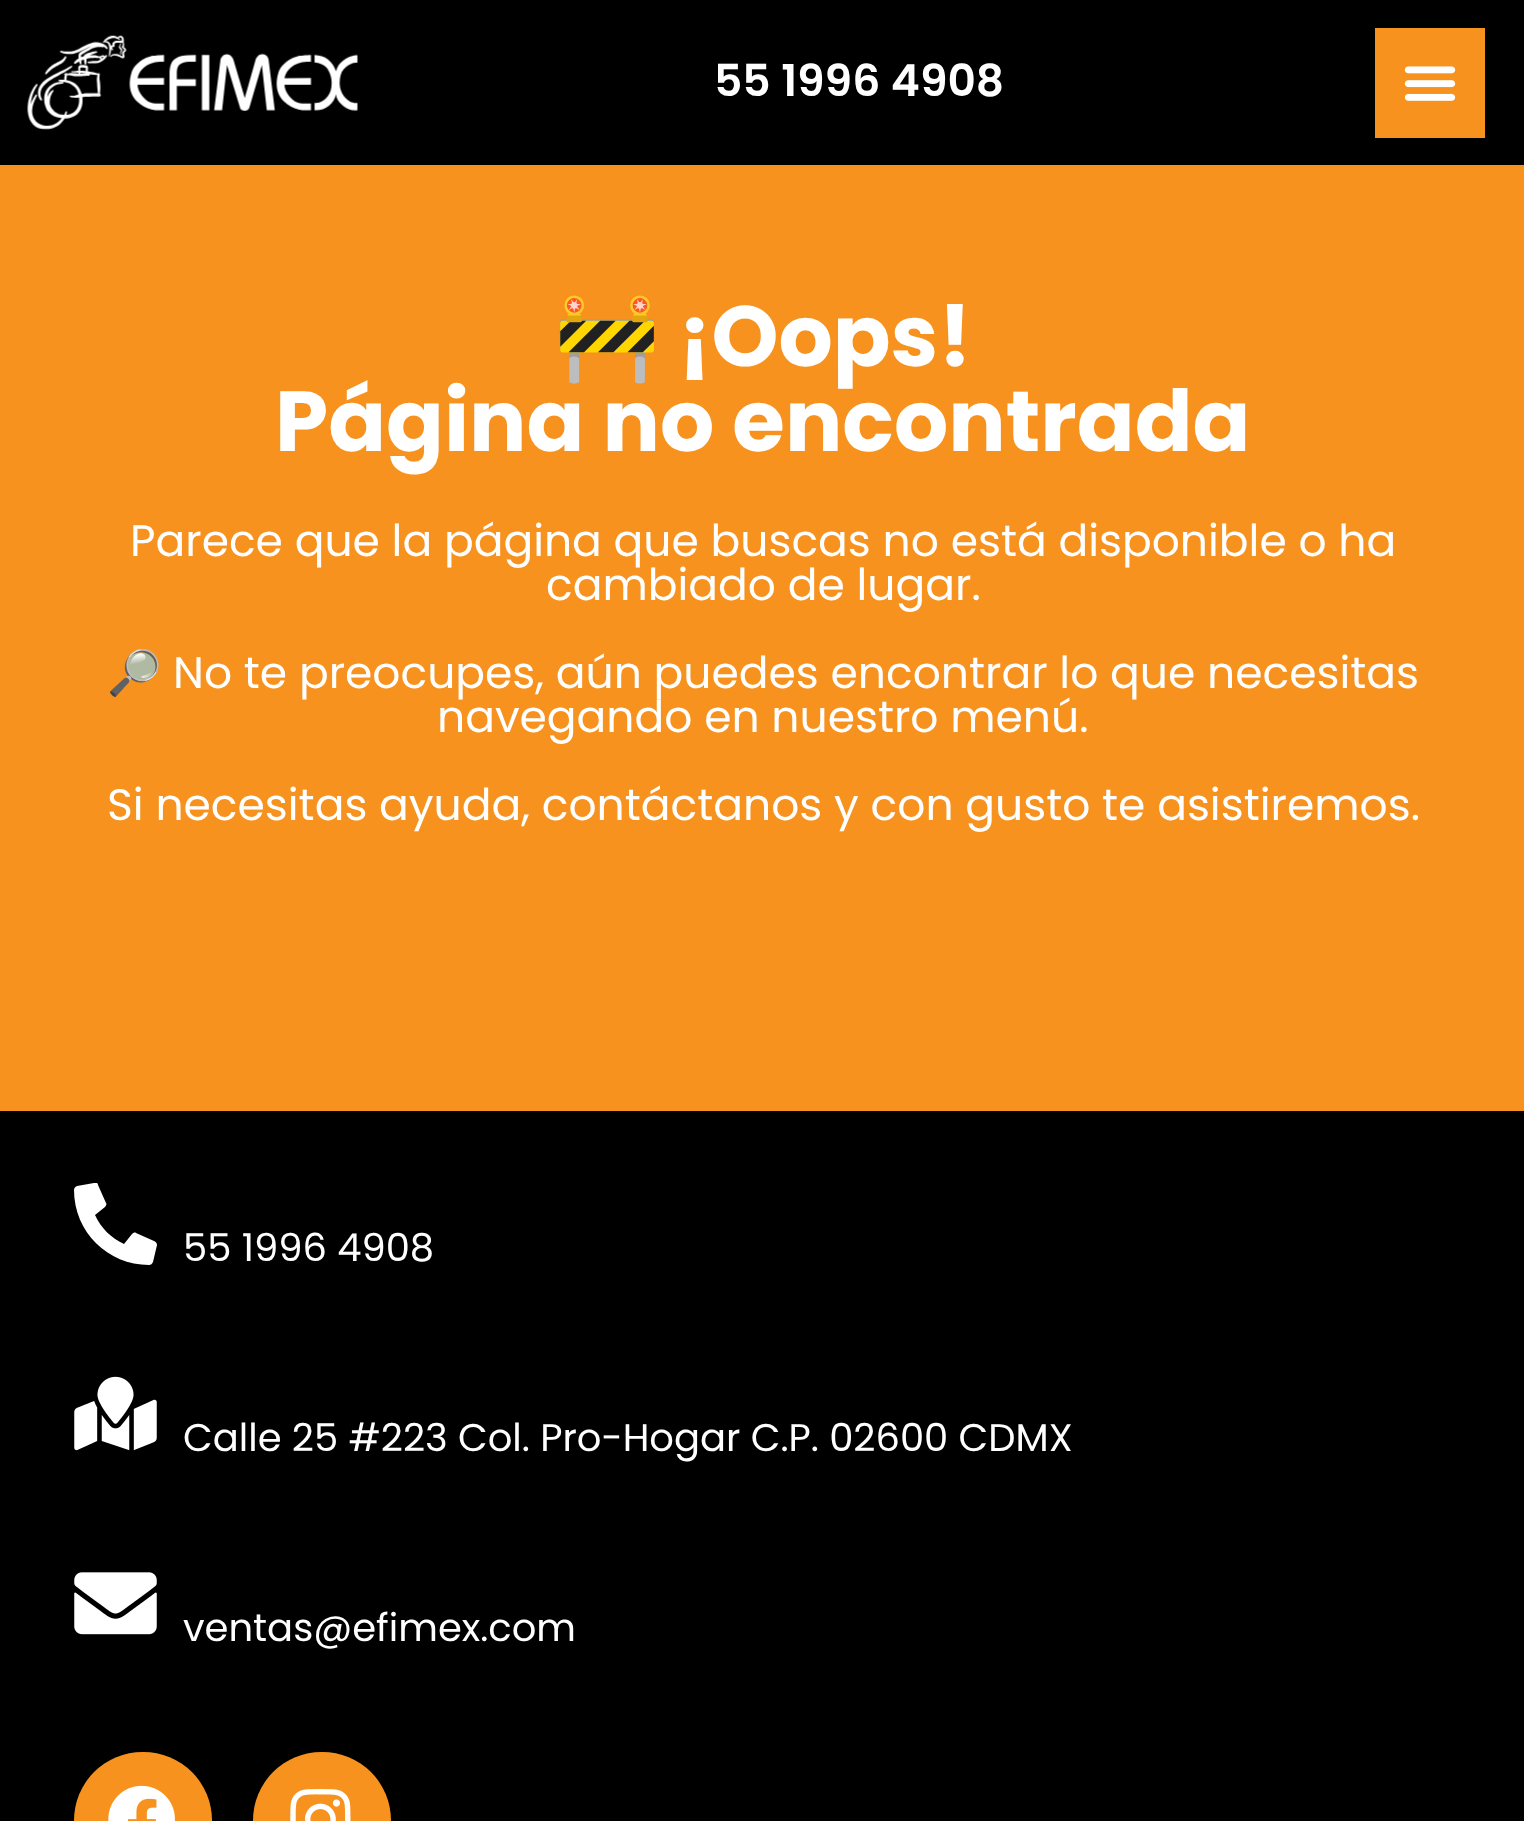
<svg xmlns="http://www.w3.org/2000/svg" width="1524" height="1821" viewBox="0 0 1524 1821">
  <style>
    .t1 { font: 600 44px Poppins; fill: #fff; }
    .t2 { font: bold 85.25px Noto Color Emoji; fill: #fff; }
    .t3 { font: bold 85.25px Poppins; fill: #fff; }
    .t4 { font: 44px Poppins; fill: #fff; }
    .t5 { font: 44px Noto Color Emoji; fill: #fff; }
    .t6 { font: 38.5px Poppins; fill: #fff; }
  </style>
  <defs>
    <clipPath id="clip1"><rect x="74" y="1183" width="83" height="82"/></clipPath>
  </defs>
  <rect width="100%" height="100%" fill="#000"/>
  <image x="27" y="35" width="331" height="95" href="images/1.png"/>
  <text x="714" y="96" class="t1">55 1996 4908</text>
  <rect x="1375" y="28" width="110" height="110" fill="#f7921e"/>
  <image x="1404" y="66" width="52" height="35" href="images/2.png"/>
  <rect x="0" y="165" width="1524" height="946" fill="#f7921e"/>
  <text x="554" y="366" class="t2">🚧</text>
  <text x="678" y="366" class="t3">¡Oops!</text>
  <text x="275" y="451" class="t3">Página no encontrada</text>
  <text x="130" y="556" class="t4">Parece que la página que buscas no está disponible o ha</text>
  <text x="546" y="600" class="t4">cambiado de lugar.</text>
  <text x="107" y="688" class="t5">🔎</text>
  <text x="173" y="688" class="t4">No te preocupes, aún puedes encontrar lo que necesitas</text>
  <text x="437" y="732" class="t4">navegando en nuestro menú.</text>
  <text x="107" y="820" class="t4">Si necesitas ayuda, contáctanos y con gusto te asistiremos.</text>
  <g clip-path="url(#clip1)">
    <path d="M154 1241L136 1233C135 1232 133 1233 132 1234L124 1244C111 1238 101 1228 95 1215L105 1207C106 1206 107 1204 106 1203L98 1185C98 1183 96 1182 94 1183L77 1186C75 1187 74 1188 74 1190C74 1232 108 1265 149 1265C151 1265 152 1264 153 1262L157 1245C157 1243 156 1242 154 1241Z" fill="#fff"/>
  </g>
  <text x="183" y="1261" class="t6">55 1996 4908</text>
  <image x="74" y="1376" width="83" height="75" href="images/3.png"/>
  <text x="183" y="1451" class="t6">Calle 25 #223 Col. Pro-Hogar C.P. 02600 CDMX</text>
  <image x="74" y="1572" width="83" height="63" href="images/4.png"/>
  <text x="183" y="1641" class="t6">ventas@efimex.com</text>
  <rect x="74" y="1752" width="138" height="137" rx="68.5" fill="#f7921e"/>
  <image x="108" y="1785" width="67" height="36" href="images/5.png"/>
  <rect x="253" y="1752" width="138" height="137" rx="68.5" fill="#f7921e"/>
  <image x="290" y="1789" width="61" height="32" href="images/6.png"/>
</svg>
